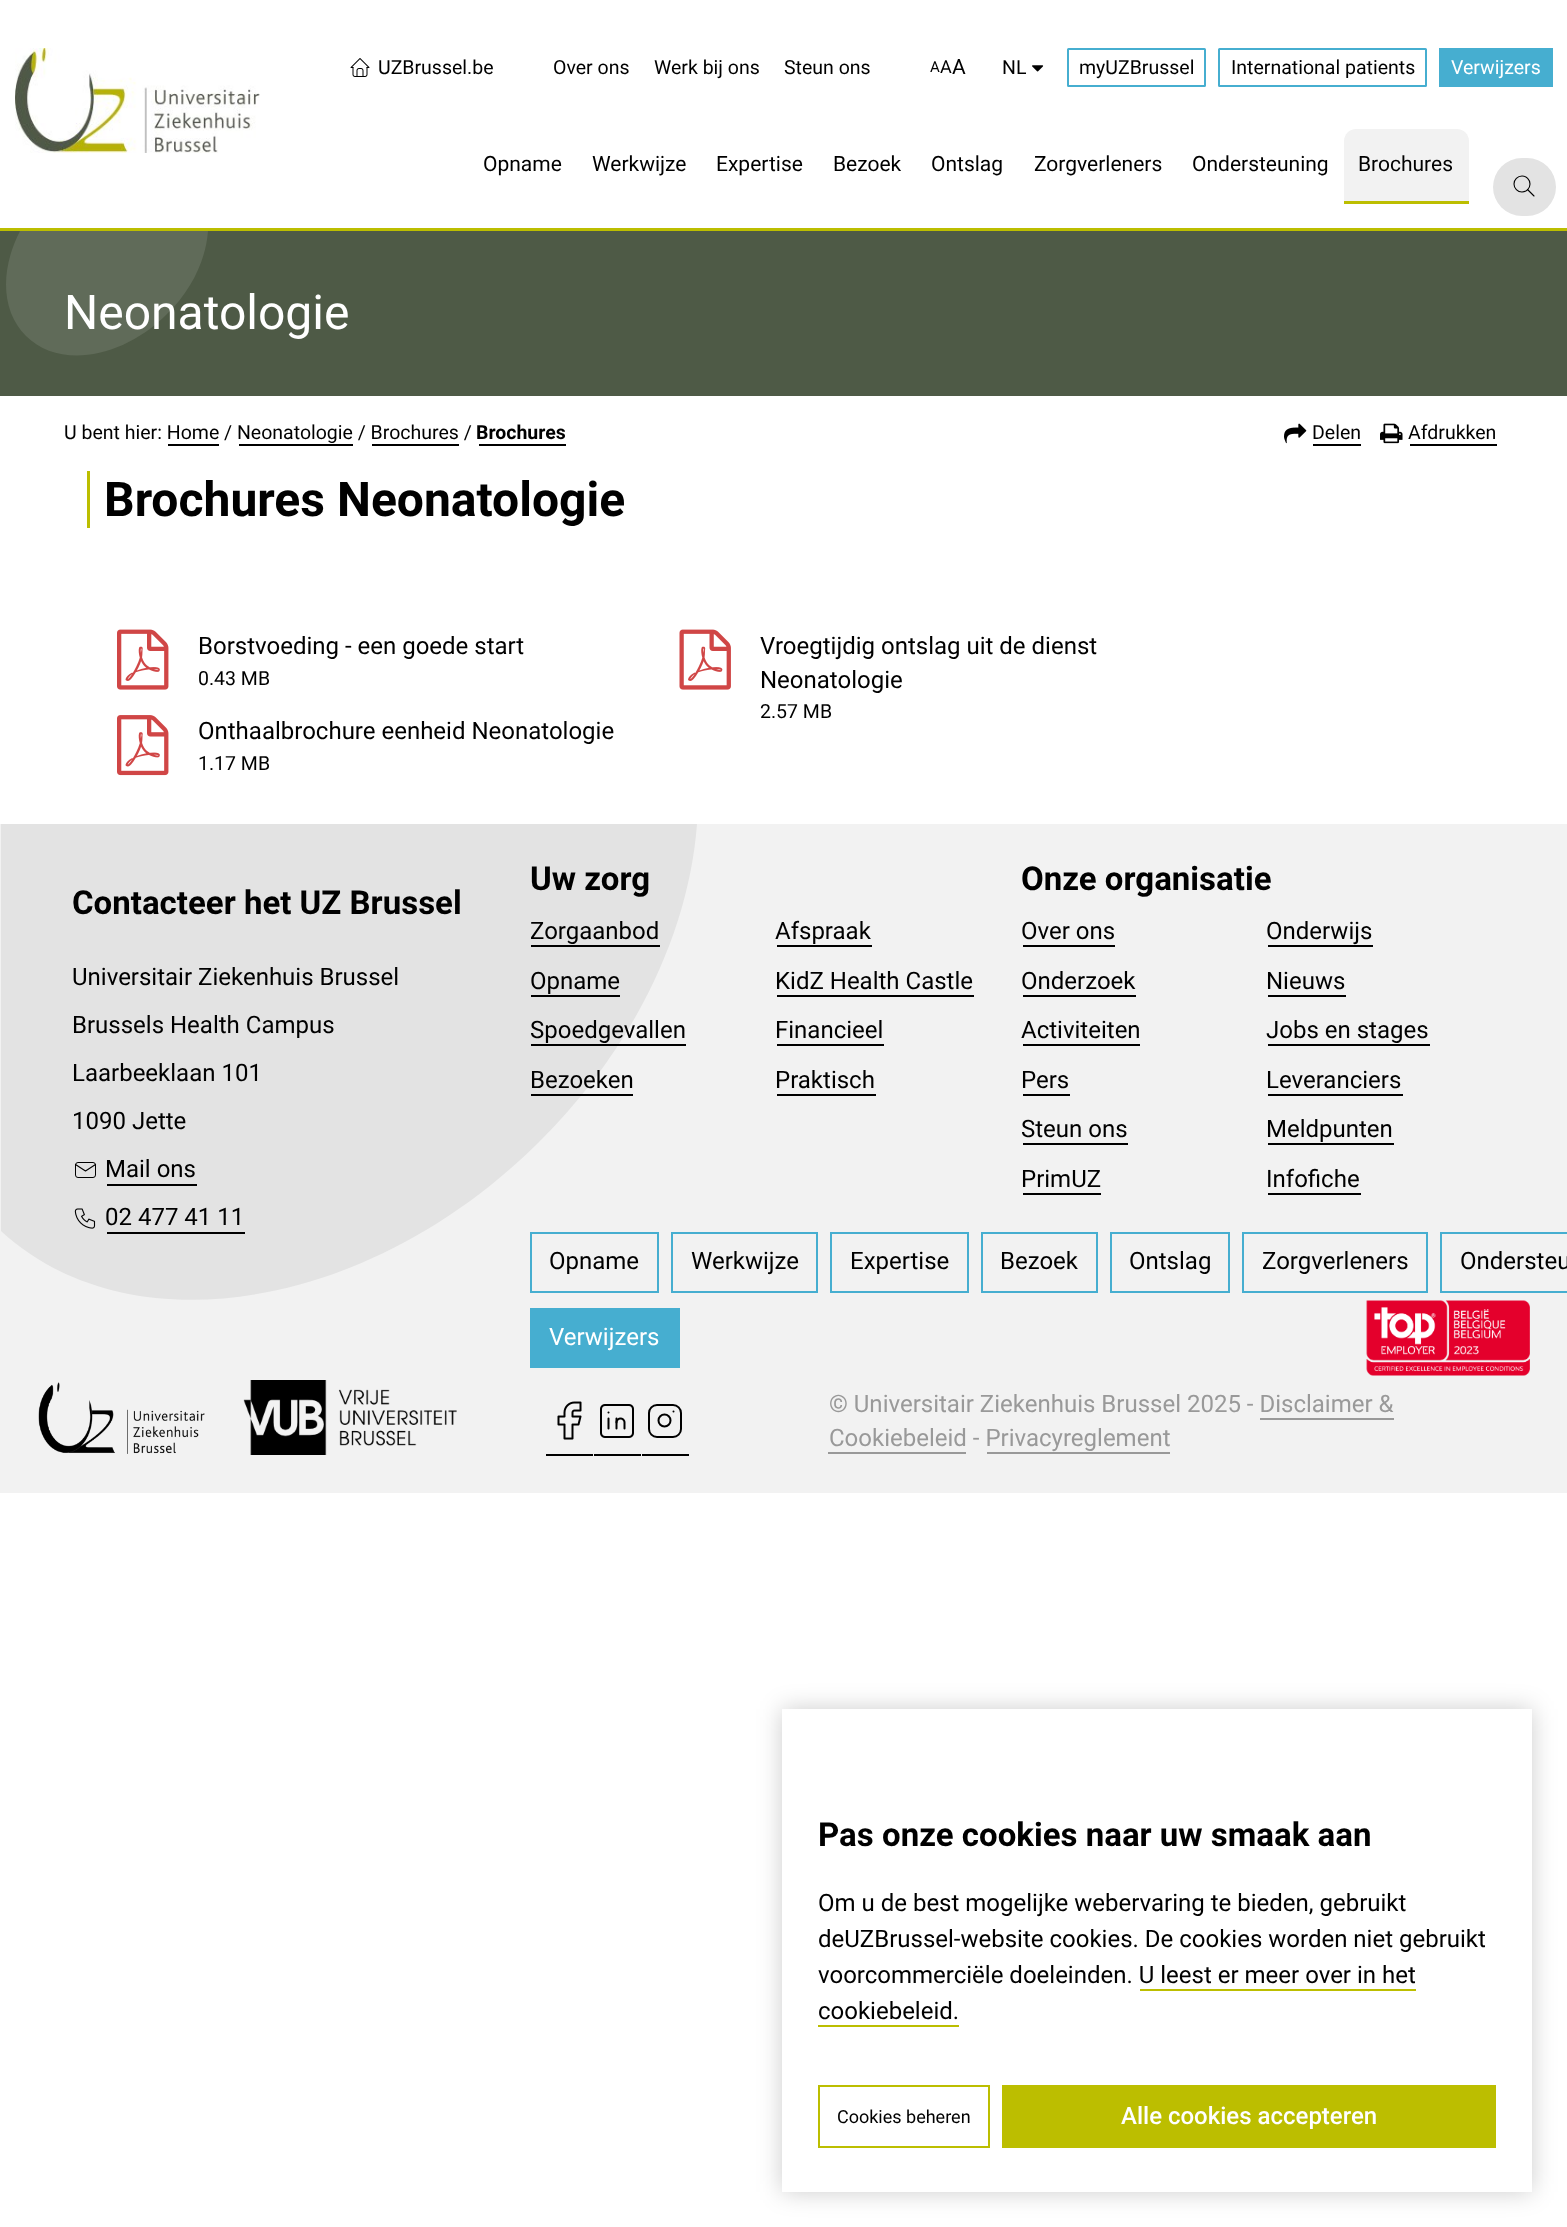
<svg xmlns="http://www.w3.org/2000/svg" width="1567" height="2227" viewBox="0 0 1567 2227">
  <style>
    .t1 { font: 19.5px Roboto; fill: #000; }
    .t2 { font: 15px Roboto; fill: #000; }
    .t3 { font: 18px Roboto; fill: #000; }
    .t4 { font: 21px Roboto; fill: #000; }
    .t5 { font: 19.5px Roboto; fill: #fff; }
    .t6 { font: 48px Roboto; fill: #fff; }
    .t7 { font: bold 19.5px Roboto; fill: #000; }
    .t8 { font: bold 48px Roboto; fill: #000; }
    .t9 { font: 24px Roboto; fill: #000; }
    .t10 { font: bold 33px Roboto; fill: #000; }
    .t11 { font: 24px Roboto; fill: #fff; }
    .t12 { font: 24px Roboto; fill: #999; }
    .t13 { font: 500 24px Roboto; fill: #fff; }
  </style>
  <rect width="100%" height="100%" fill="#fff"/>
  <image x="15" y="48" width="245" height="105" href="images/1.png"/>
  <image x="350" y="58" width="20" height="19" href="images/2.png"/>
  <text x="378" y="74" class="t1">UZBrussel.be</text>
  <text x="553" y="74" class="t1">Over ons</text>
  <text x="654" y="74" class="t1">Werk bij ons</text>
  <text x="784" y="74" class="t1">Steun ons</text>
  <text x="930" y="72" class="t2">A</text>
  <text x="940" y="73" class="t3">A</text>
  <text x="952" y="74" class="t4">A</text>
  <text x="1002" y="74" class="t1">NL</text>
  <image x="1032" y="65" width="12" height="7" href="images/3.png"/>
  <rect x="1068" y="49" width="137" height="37" rx="0.5" fill="none" stroke="#46aed0" stroke-width="2"/>
  <text x="1079" y="74" class="t1">myUZBrussel</text>
  <rect x="1219" y="49" width="207" height="37" rx="0.5" fill="none" stroke="#46aed0" stroke-width="2"/>
  <text x="1231" y="74" class="t1">International patients</text>
  <rect x="1439" y="48" width="114" height="39" fill="#46aed0"/>
  <text x="1451" y="74" class="t5">Verwijzers</text>
  <rect x="0" y="228" width="1567" height="3" fill="#bcbe00"/>
  <text x="483" y="171" class="t4">Opname</text>
  <text x="592" y="171" class="t4">Werkwijze</text>
  <text x="716" y="171" class="t4">Expertise</text>
  <text x="833" y="171" class="t4">Bezoek</text>
  <text x="931" y="171" class="t4">Ontslag</text>
  <text x="1034" y="171" class="t4">Zorgverleners</text>
  <text x="1192" y="171" class="t4">Ondersteuning</text>
  <path d="M1356 129H1457C1463.5 129 1469 134.5 1469 141V204H1344V141C1344 134.5 1349.5 129 1356 129Z" fill="#f2f2f2"/>
  <rect x="1344" y="201" width="125" height="3" fill="#bcbe00"/>
  <text x="1358" y="171" class="t4">Brochures</text>
  <rect x="1493" y="158" width="63" height="58" rx="29" fill="#e3e3e3"/>
  <circle cx="1522" cy="184" r="8" fill="none" stroke="#000" stroke-width="1.1"/>
  <path d="M1534 196L1527.5 189.5" fill="none" stroke="#000" stroke-width="1.1" stroke-linecap="round" stroke-linejoin="round"/>
  <rect x="0" y="231" width="1567" height="165" fill="#4e5a46"/>
  <path d="M26 336C59 369 122 359 167 314C192 290 206 259 208 231H20C0 270 1 311 26 336Z" fill="#606b59"/>
  <text x="64" y="329" class="t6">Neonatologie</text>
  <text x="64" y="439" class="t1">U bent hier: Home / Neonatologie / Brochures /</text>
  <text x="476" y="439" class="t7">Brochures</text>
  <rect x="479" y="444" width="87" height="2" fill="#000"/>
  <rect x="168" y="444" width="51" height="2" fill="#000"/>
  <rect x="239" y="444" width="114" height="2" fill="#000"/>
  <rect x="372" y="444" width="87" height="2" fill="#000"/>
  <image x="1284" y="423" width="23" height="21" href="images/4.png"/>
  <text x="1312" y="439" class="t1">Delen</text>
  <rect x="1313" y="444" width="48" height="2" fill="#000"/>
  <image x="1380" y="423" width="23" height="21" href="images/5.png"/>
  <text x="1408" y="439" class="t1">Afdrukken</text>
  <rect x="1410" y="444" width="87" height="2" fill="#000"/>
  <rect x="87" y="471" width="3" height="57" fill="#bcbe00"/>
  <text x="104" y="516" class="t8">Brochures Neonatologie</text>
  <image x="117" y="629" width="52" height="61" href="images/6.png"/>
  <text x="198" y="654" class="t9">Borstvoeding - een goede start</text>
  <text x="198" y="685" class="t1">0.43 MB</text>
  <image x="679" y="629" width="52" height="61" href="images/7.png"/>
  <text x="760" y="654" class="t9">Vroegtijdig ontslag uit de dienst</text>
  <text x="760" y="688" class="t9">Neonatologie</text>
  <text x="760" y="718" class="t1">2.57 MB</text>
  <image x="117" y="715" width="52" height="61" href="images/8.png"/>
  <text x="198" y="739" class="t9">Onthaalbrochure eenheid Neonatologie</text>
  <text x="198" y="770" class="t1">1.17 MB</text>
  <rect x="0" y="824" width="1567" height="669" fill="#f2f2f2"/>
  <path d="M1 1231C130 1350 369 1311 539 1142C635 1047 689 931 697 824H1Z" fill="#e3e3e3"/>
  <text x="72" y="914" class="t10">Contacteer het UZ Brussel</text>
  <text x="72" y="985" class="t9">Universitair Ziekenhuis Brussel</text>
  <text x="72" y="1033" class="t9">Brussels Health Campus</text>
  <text x="72" y="1081" class="t9">Laarbeeklaan 101</text>
  <text x="72" y="1129" class="t9">1090 Jette</text>
  <rect x="75.5" y="1162.5" width="20" height="15" rx="2.5" fill="none" stroke="#000"/>
  <path d="M75.5 1164.5L85.5 1171L95.5 1164.5" fill="none" stroke="#000" stroke-width="1.1" stroke-linecap="round" stroke-linejoin="round"/>
  <text x="105" y="1177" class="t9">Mail ons</text>
  <rect x="107" y="1184" width="90" height="2" fill="#000"/>
  <image x="74" y="1208" width="22" height="21" href="images/9.png"/>
  <text x="105" y="1225" class="t9">02 477 41 11</text>
  <rect x="107" y="1232" width="138" height="2" fill="#000"/>
  <text x="530" y="890" class="t10">Uw zorg</text>
  <text x="530" y="939" class="t9">Zorgaanbod</text>
  <rect x="531" y="945" width="129" height="2" fill="#000"/>
  <text x="775" y="939" class="t9">Afspraak</text>
  <rect x="777" y="945" width="95" height="2" fill="#000"/>
  <text x="530" y="989" class="t9">Opname</text>
  <rect x="531" y="995" width="89" height="2" fill="#000"/>
  <text x="775" y="989" class="t9">KidZ Health Castle</text>
  <rect x="777" y="995" width="197" height="2" fill="#000"/>
  <text x="530" y="1038" class="t9">Spoedgevallen</text>
  <rect x="531" y="1044" width="155" height="2" fill="#000"/>
  <text x="775" y="1038" class="t9">Financieel</text>
  <rect x="777" y="1044" width="107" height="2" fill="#000"/>
  <text x="530" y="1088" class="t9">Bezoeken</text>
  <rect x="531" y="1094" width="102" height="2" fill="#000"/>
  <text x="775" y="1088" class="t9">Praktisch</text>
  <rect x="777" y="1094" width="99" height="2" fill="#000"/>
  <text x="1021" y="890" class="t10">Onze organisatie</text>
  <text x="1021" y="939" class="t9">Over ons</text>
  <rect x="1023" y="945" width="92" height="2" fill="#000"/>
  <text x="1266" y="939" class="t9">Onderwijs</text>
  <rect x="1268" y="945" width="105" height="2" fill="#000"/>
  <text x="1021" y="989" class="t9">Onderzoek</text>
  <rect x="1023" y="995" width="113" height="2" fill="#000"/>
  <text x="1266" y="989" class="t9">Nieuws</text>
  <rect x="1268" y="995" width="78" height="2" fill="#000"/>
  <text x="1021" y="1038" class="t9">Activiteiten</text>
  <rect x="1023" y="1044" width="117" height="2" fill="#000"/>
  <text x="1266" y="1038" class="t9">Jobs en stages</text>
  <rect x="1268" y="1044" width="162" height="2" fill="#000"/>
  <text x="1021" y="1088" class="t9">Pers</text>
  <rect x="1023" y="1094" width="47" height="2" fill="#000"/>
  <text x="1266" y="1088" class="t9">Leveranciers</text>
  <rect x="1268" y="1094" width="135" height="2" fill="#000"/>
  <text x="1021" y="1137" class="t9">Steun ons</text>
  <rect x="1023" y="1143" width="105" height="2" fill="#000"/>
  <text x="1266" y="1137" class="t9">Meldpunten</text>
  <rect x="1268" y="1143" width="126" height="2" fill="#000"/>
  <text x="1021" y="1187" class="t9">PrimUZ</text>
  <rect x="1023" y="1193" width="78" height="2" fill="#000"/>
  <text x="1266" y="1187" class="t9">Infofiche</text>
  <rect x="1268" y="1193" width="93" height="2" fill="#000"/>
  <rect x="531" y="1233" width="127" height="59" fill="none" stroke="#46aed0" stroke-width="2"/>
  <text x="549" y="1269" class="t9">Opname</text>
  <rect x="672" y="1233" width="145" height="59" fill="none" stroke="#46aed0" stroke-width="2"/>
  <text x="691" y="1269" class="t9">Werkwijze</text>
  <rect x="831" y="1233" width="137" height="59" fill="none" stroke="#46aed0" stroke-width="2"/>
  <text x="850" y="1269" class="t9">Expertise</text>
  <rect x="982" y="1233" width="115" height="59" fill="none" stroke="#46aed0" stroke-width="2"/>
  <text x="1000" y="1269" class="t9">Bezoek</text>
  <rect x="1111" y="1233" width="118" height="59" fill="none" stroke="#46aed0" stroke-width="2"/>
  <text x="1129" y="1269" class="t9">Ontslag</text>
  <rect x="1243" y="1233" width="184" height="59" fill="none" stroke="#46aed0" stroke-width="2"/>
  <text x="1262" y="1269" class="t9">Zorgverleners</text>
  <rect x="1441" y="1233" width="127" height="59" fill="none" stroke="#46aed0" stroke-width="2"/>
  <text x="1460" y="1269" class="t9">Ondersteu</text>
  <rect x="530" y="1308" width="150" height="60" fill="#46aed0"/>
  <text x="549" y="1345" class="t11">Verwijzers</text>
  <image x="38" y="1382" width="167" height="72" href="images/10.png"/>
  <image x="243" y="1380" width="214" height="75" href="images/11.png"/>
  <rect x="546" y="1454" width="47" height="2" fill="#000"/>
  <image x="557" y="1401" width="25" height="39" href="images/12.png"/>
  <rect x="594" y="1454" width="47" height="2" fill="#000"/>
  <image x="600" y="1404" width="34" height="34" href="images/13.png"/>
  <rect x="642" y="1454" width="47" height="2" fill="#000"/>
  <rect x="649" y="1405" width="32" height="32" rx="8" fill="none" stroke="#000" stroke-width="2"/>
  <path d="M673.5 1411.5H673.5" fill="none" stroke="#000" stroke-width="2" stroke-linecap="round" stroke-linejoin="round"/>
  <circle cx="664.5" cy="1420.5" r="6" fill="none" stroke="#000" stroke-width="2"/>
  <image x="1366" y="1300" width="164" height="76" href="images/14.png"/>
  <text x="829" y="1412" class="t12">© Universitair Ziekenhuis Brussel 2025 - Disclaimer &amp;</text>
  <text x="829" y="1446" class="t12">Cookiebeleid - Privacyreglement</text>
  <rect x="1260" y="1418" width="134" height="2" fill="#999"/>
  <rect x="828" y="1452" width="138" height="2" fill="#999"/>
  <rect x="987" y="1452" width="183" height="2" fill="#999"/>
  <rect x="782" y="1709" width="750" height="483" fill="#00000033" filter="blur(12px)"/>
  <rect x="782" y="1709" width="750" height="483" fill="#fff"/>
  <text x="818" y="1846" class="t10">Pas onze cookies naar uw smaak aan</text>
  <text x="818" y="1911" class="t9">Om u de best mogelijke webervaring te bieden, gebruikt</text>
  <text x="818" y="1947" class="t9">deUZBrussel-website cookies. De cookies worden niet gebruikt</text>
  <text x="818" y="1983" class="t9">voorcommerciële doeleinden. U leest er meer over in het</text>
  <text x="818" y="2019" class="t9">cookiebeleid.</text>
  <rect x="1140" y="1989" width="276" height="2" fill="#bcbe00"/>
  <rect x="818" y="2025" width="141" height="2" fill="#bcbe00"/>
  <rect x="819" y="2086" width="170" height="61" fill="none" stroke="#bcbe00" stroke-width="2"/>
  <text x="837" y="2123" class="t3">Cookies beheren</text>
  <rect x="1002" y="2085" width="494" height="63" fill="#bcbe00"/>
  <text x="1121" y="2124" class="t13">Alle cookies accepteren</text>
</svg>
